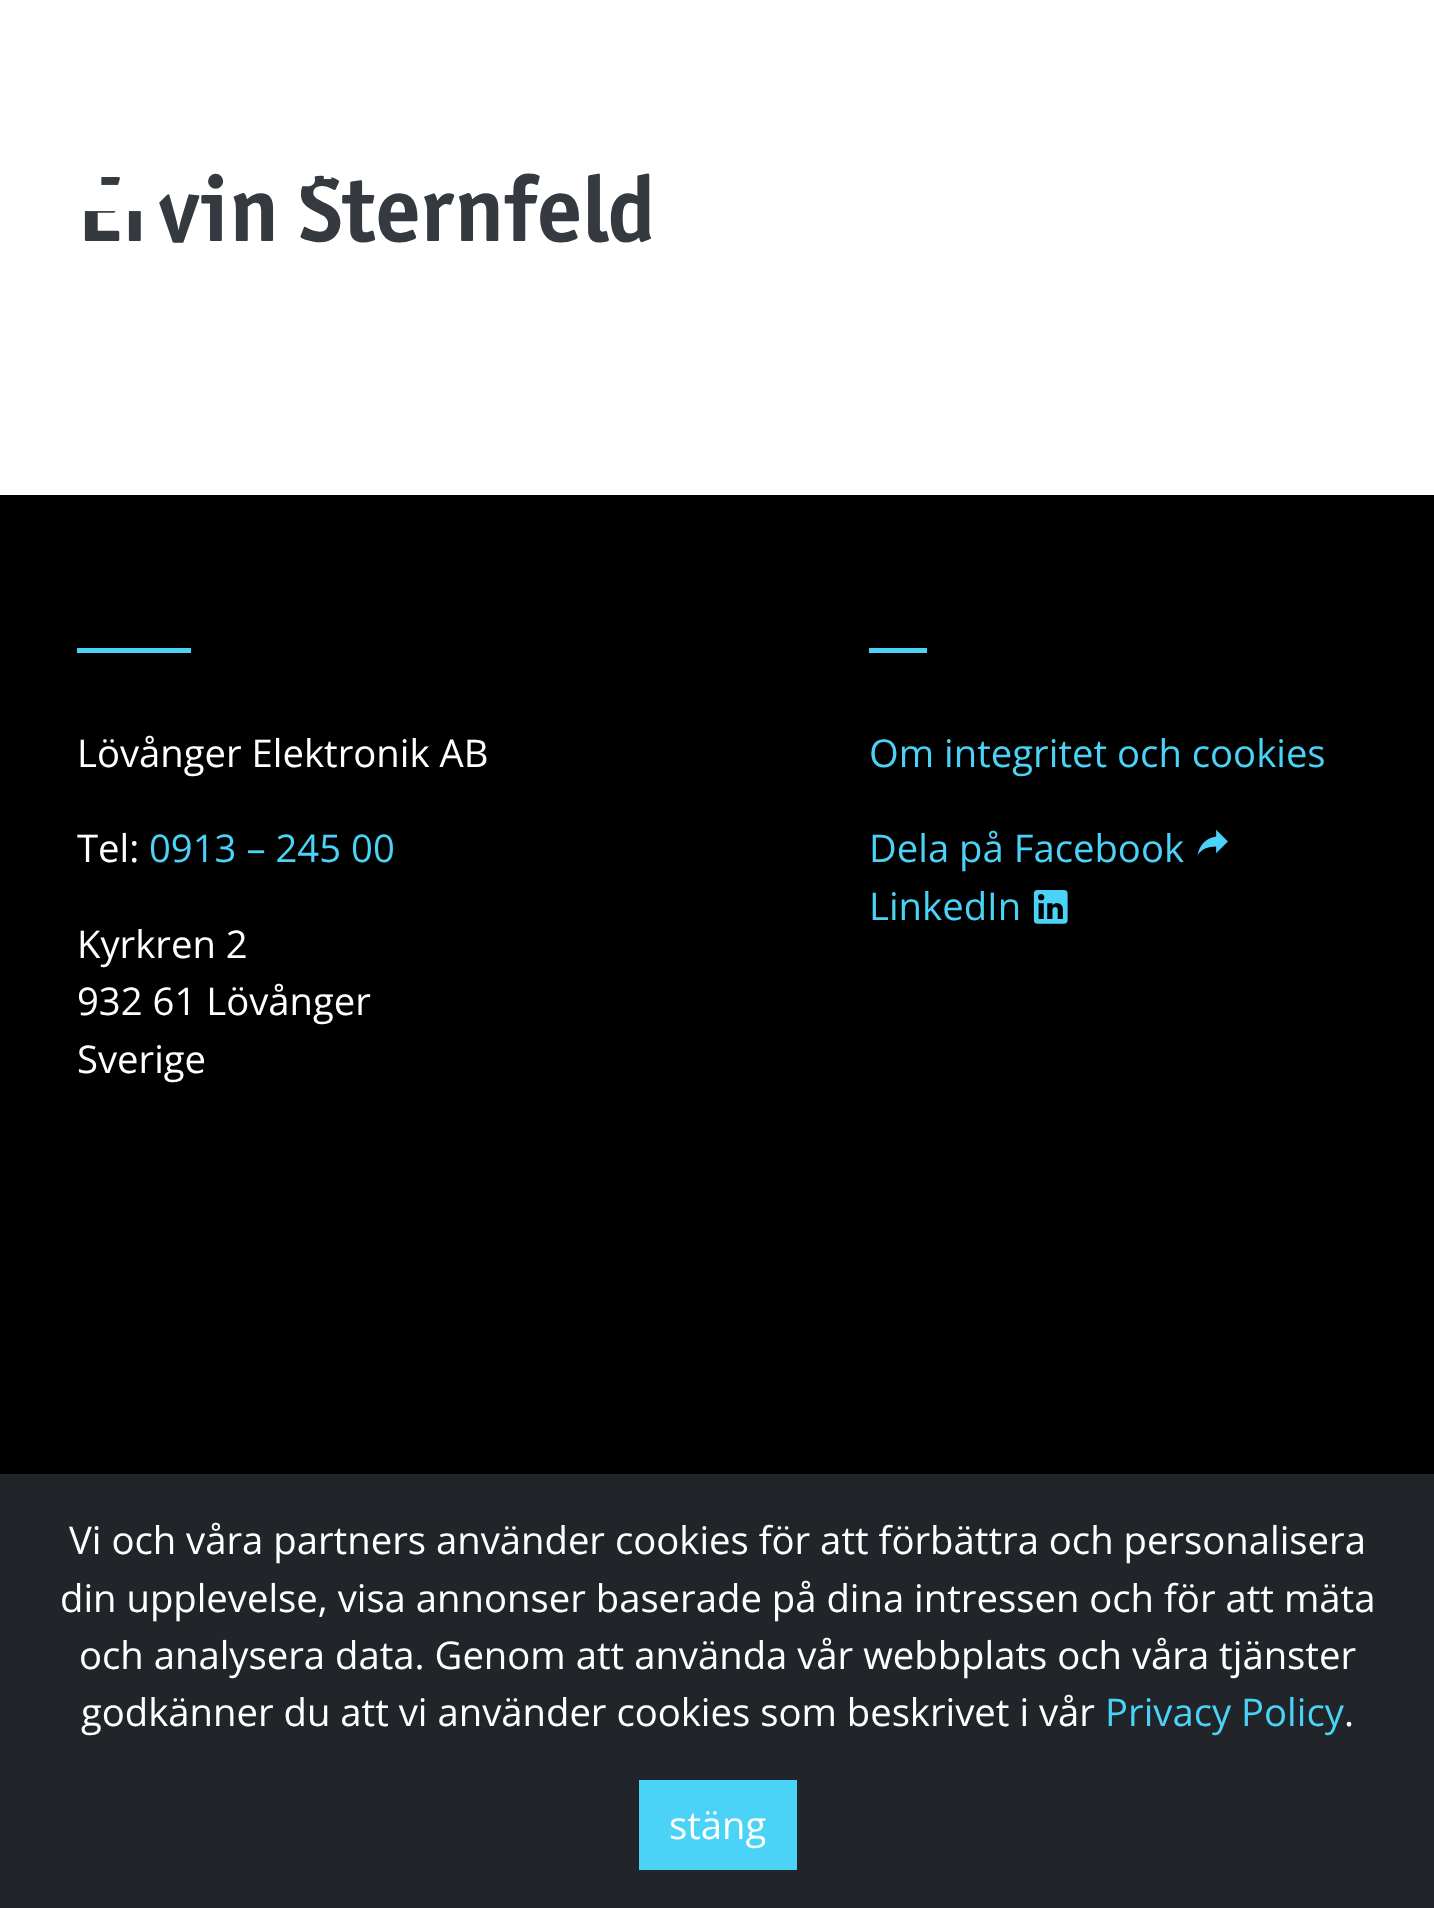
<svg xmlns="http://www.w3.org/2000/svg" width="1434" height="1908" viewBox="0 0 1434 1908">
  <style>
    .t1 { font: bold 93.25px 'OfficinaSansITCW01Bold'; fill: #343a40; }
    .t2 { font: 38.25px Open Sans; fill: #fff; }
    .t3 { font: 38.25px Open Sans; fill: #4ad2f7; }
  </style>
  <rect width="100%" height="100%" fill="#000"/>
  <rect x="0" y="0" width="1434" height="495" fill="#fff"/>
  <text x="77" y="241" class="t1">Ervin Sternfeld</text>
  <image x="84" y="175" width="248" height="37" href="images/1.png"/>
  <rect x="77" y="648" width="114" height="5" fill="#4ad2f7"/>
  <text x="77" y="767" class="t2">Lövånger Elektronik AB</text>
  <text x="77" y="862" class="t2">Tel:</text>
  <text x="149" y="862" class="t3">0913 – 245 00</text>
  <text x="77" y="958" class="t2">Kyrkren 2</text>
  <text x="77" y="1015" class="t2">932 61 Lövånger</text>
  <text x="77" y="1073" class="t2">Sverige</text>
  <rect x="869" y="648" width="58" height="5" fill="#4ad2f7"/>
  <text x="869" y="767" class="t3">Om integritet och cookies</text>
  <text x="869" y="862" class="t3">Dela på Facebook</text>
  <image x="1197" y="829" width="31" height="26" href="images/2.png"/>
  <text x="869" y="920" class="t3">LinkedIn</text>
  <image x="1033" y="890" width="35" height="34" href="images/3.png"/>
  <rect x="0" y="1474" width="1434" height="434" fill="#212529"/>
  <text x="69" y="1554" class="t2">Vi och våra partners använder cookies för att förbättra och personalisera</text>
  <text x="60" y="1612" class="t2">din upplevelse, visa annonser baserade på dina intressen och för att mäta</text>
  <text x="79" y="1669" class="t2">och analysera data. Genom att använda vår webbplats och våra tjänster</text>
  <text x="81" y="1726" class="t2">godkänner du att vi använder cookies som beskrivet i vår</text>
  <text x="1105" y="1726" class="t3">Privacy Policy</text>
  <text x="1344" y="1726" class="t2">.</text>
  <rect x="639" y="1780" width="158" height="90" fill="#4ad2f7"/>
  <text x="669" y="1839" class="t2">stäng</text>
</svg>
